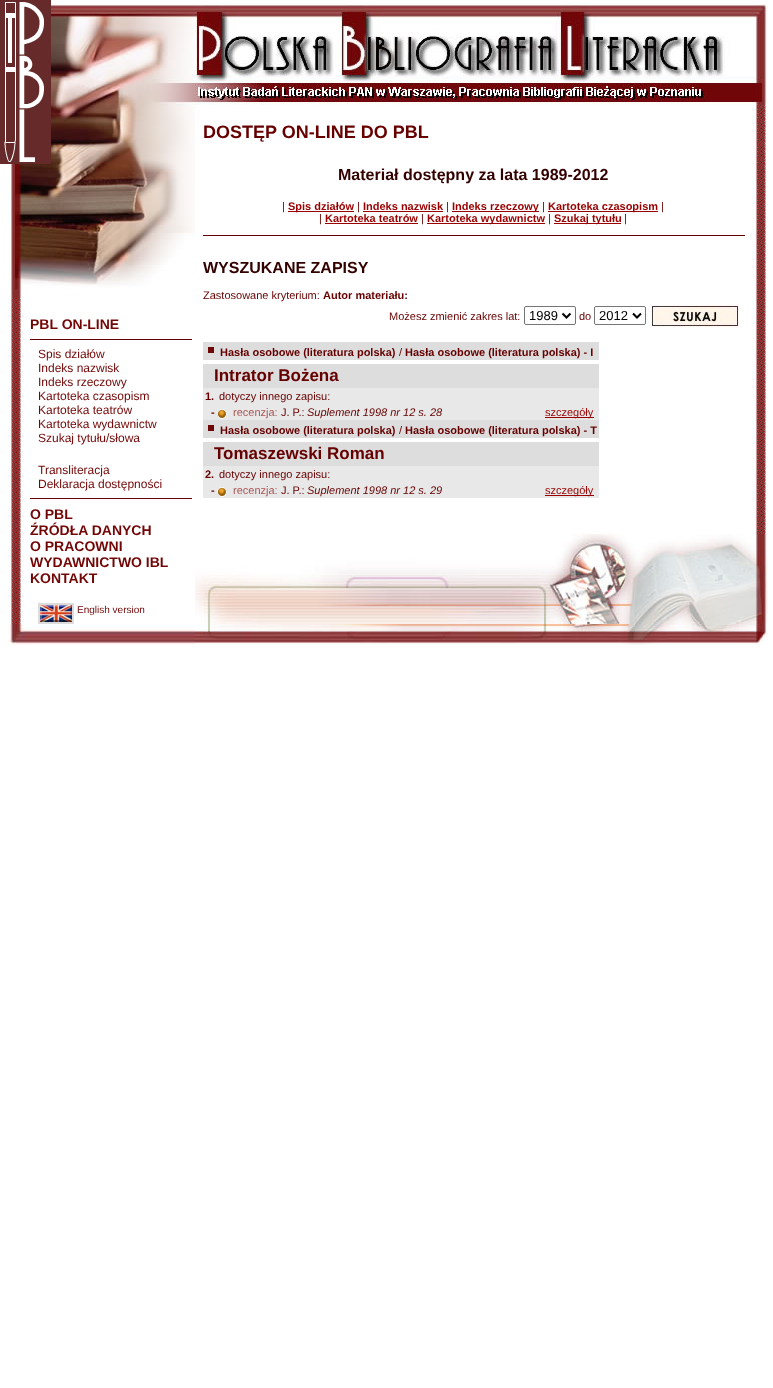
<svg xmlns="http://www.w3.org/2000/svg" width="773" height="1388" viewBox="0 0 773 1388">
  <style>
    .t1 { font: bold 18px Liberation Sans; fill: #600; }
    .t2 { font: bold 14px Liberation Sans; fill: #720606; }
    .t3 { font: 12px Liberation Sans; fill: #720606; }
    .t4 { font: 10px Liberation Sans; fill: #720606; }
    .t5 { font: bold 16px Liberation Sans; fill: #300; }
    .t6 { font: 11px Liberation Sans; fill: #600; }
    .t7 { font: bold 11px Liberation Sans; fill: #900; }
    .t8 { font: bold 11px Liberation Sans; fill: #600; }
    .t9 { font: 13px Liberation Sans; fill: #000; }
    .t10 { font: bold 17px Liberation Sans; fill: #600; }
    .t11 { font: 11px Liberation Sans; fill: #a55; }
    .t12 { font: italic 11px Liberation Sans; fill: #600; }
    .t13 { font: 11px Liberation Sans; fill: #900; }
  </style>
  <rect width="100%" height="100%" fill="#fff"/>
  <image x="8" y="105" width="187" height="193" href="images/6.png"/>
  <image x="0" y="0" width="51" height="164" href="images/1.png"/>
  <image x="51" y="4" width="144" height="101" href="images/2.png"/>
  <image x="195" y="4" width="573" height="101" href="images/3.png"/>
  <image x="756" y="105" width="10" height="38" href="images/4.png"/>
  <text x="203" y="138" class="t1">DOSTĘP ON-LINE DO PBL</text>
  <image x="11" y="298" width="10" height="326" href="images/5.png"/>
  <text x="30" y="329" class="t2">PBL ON-LINE</text>
  <rect x="30" y="339" width="162" height="1" fill="#600"/>
  <text x="38" y="358" class="t3">Spis działów</text>
  <text x="38" y="372" class="t3">Indeks nazwisk</text>
  <text x="38" y="386" class="t3">Indeks rzeczowy</text>
  <text x="38" y="400" class="t3">Kartoteka czasopism</text>
  <text x="38" y="414" class="t3">Kartoteka teatrów</text>
  <text x="38" y="428" class="t3">Kartoteka wydawnictw</text>
  <text x="38" y="442" class="t3">Szukaj tytułu/słowa</text>
  <text x="38" y="474" class="t3">Transliteracja</text>
  <text x="38" y="488" class="t3">Deklaracja dostępności</text>
  <rect x="30" y="498" width="162" height="1" fill="#600"/>
  <text x="30" y="519" class="t2">O PBL</text>
  <text x="30" y="535" class="t2">ŹRÓDŁA DANYCH</text>
  <text x="30" y="551" class="t2">O PRACOWNI</text>
  <text x="30" y="567" class="t2">WYDAWNICTWO IBL</text>
  <text x="30" y="583" class="t2">KONTAKT</text>
  <rect x="39" y="604" width="34" height="19" fill="none" stroke="#dcdcdc" stroke-width="2"/>
  <image x="40" y="605" width="32" height="17" href="images/7.png"/>
  <text x="77" y="613" class="t4">English version</text>
  <image x="756" y="143" width="10" height="391" href="images/8.png"/>
  <image x="757" y="166" width="9" height="331" href="images/9.png"/>
  <text x="338" y="180" class="t5">Materiał dostępny za lata 1989-2012</text>
  <text x="282" y="210" class="t6">|</text>
  <rect x="288" y="211" width="66" height="1" fill="#900"/>
  <text x="288" y="210" class="t7">Spis działów</text>
  <text x="357" y="210" class="t6">|</text>
  <text x="363" y="210" class="t7">Indeks nazwisk</text>
  <rect x="363" y="211" width="80" height="1" fill="#900"/>
  <text x="446" y="210" class="t6">|</text>
  <rect x="452" y="211" width="87" height="1" fill="#900"/>
  <text x="452" y="210" class="t7">Indeks rzeczowy</text>
  <text x="542" y="210" class="t6">|</text>
  <rect x="548" y="211" width="110" height="1" fill="#900"/>
  <text x="548" y="210" class="t7">Kartoteka czasopism</text>
  <text x="661" y="210" class="t6">|</text>
  <text x="319" y="222" class="t6">|</text>
  <text x="325" y="222" class="t7">Kartoteka teatrów</text>
  <rect x="325" y="223" width="93" height="1" fill="#900"/>
  <text x="421" y="222" class="t6">|</text>
  <rect x="427" y="223" width="118" height="1" fill="#900"/>
  <text x="427" y="222" class="t7">Kartoteka wydawnictw</text>
  <text x="548" y="222" class="t6">|</text>
  <rect x="554" y="223" width="67" height="1" fill="#900"/>
  <text x="554" y="222" class="t7">Szukaj tytułu</text>
  <text x="624" y="222" class="t6">|</text>
  <rect x="203" y="235" width="542" height="1" fill="#600"/>
  <text x="203" y="273" class="t5">WYSZUKANE ZAPISY</text>
  <text x="203" y="299" class="t6">Zastosowane kryterium:</text>
  <text x="323" y="299" class="t8">Autor materiału:</text>
  <text x="389" y="320" class="t6">Możesz zmienić zakres lat:</text>
  <rect x="524.5" y="306.5" width="51" height="18" rx="1.5" fill="none" stroke="#767676"/>
  <path d="M562.5 313.5L566.5 317.5L570.5 313.5" fill="none" stroke="#000" stroke-width="2"/>
  <text x="529" y="320" class="t9">1989</text>
  <text x="579" y="320" class="t6">do</text>
  <rect x="594.5" y="306.5" width="51" height="18" rx="1.5" fill="none" stroke="#767676"/>
  <path d="M633 313.5L637 317.5L641 313.5" fill="none" stroke="#000" stroke-width="2"/>
  <text x="599" y="320" class="t9">2012</text>
  <image x="650" y="304" width="90" height="24" href="images/10.png"/>
  <rect x="203" y="342" width="396" height="18" fill="#ddd"/>
  <rect x="208" y="347" width="6" height="6" fill="#6f0606"/>
  <text x="220" y="356" class="t8">Hasła osobowe (literatura polska)</text>
  <text x="399" y="356" class="t6">/</text>
  <text x="405" y="356" class="t8">Hasła osobowe (literatura polska) - I</text>
  <rect x="203" y="364" width="396" height="24" fill="#ddd"/>
  <text x="214" y="381" class="t10">Intrator Bożena</text>
  <rect x="203" y="388" width="396" height="32" fill="#e8e8e8"/>
  <text x="205" y="400" class="t8">1.</text>
  <text x="219" y="400" class="t6">dotyczy innego zapisu:</text>
  <text x="211" y="416" class="t8">-</text>
  <image x="217" y="409" width="10" height="10" href="images/11.png"/>
  <text x="233" y="416" class="t11">recenzja:</text>
  <text x="281" y="416" class="t6">J. P.:</text>
  <text x="307" y="416" class="t12">Suplement 1998 nr 12 s. 28</text>
  <rect x="545" y="417" width="49" height="1" fill="#900"/>
  <text x="545" y="416" class="t13">szczegóły</text>
  <rect x="203" y="420" width="396" height="18" fill="#ddd"/>
  <rect x="208" y="425" width="6" height="6" fill="#6f0606"/>
  <text x="220" y="434" class="t8">Hasła osobowe (literatura polska)</text>
  <text x="399" y="434" class="t6">/</text>
  <text x="405" y="434" class="t8">Hasła osobowe (literatura polska) - T</text>
  <rect x="203" y="442" width="396" height="24" fill="#ddd"/>
  <text x="214" y="459" class="t10">Tomaszewski Roman</text>
  <rect x="203" y="466" width="396" height="32" fill="#e8e8e8"/>
  <text x="205" y="478" class="t8">2.</text>
  <text x="219" y="478" class="t6">dotyczy innego zapisu:</text>
  <text x="211" y="494" class="t8">-</text>
  <image x="217" y="487" width="10" height="10" href="images/11.png"/>
  <text x="233" y="494" class="t11">recenzja:</text>
  <text x="281" y="494" class="t6">J. P.:</text>
  <text x="307" y="494" class="t12">Suplement 1998 nr 12 s. 29</text>
  <rect x="545" y="495" width="49" height="1" fill="#900"/>
  <text x="545" y="494" class="t13">szczegóły</text>
  <image x="195" y="534" width="573" height="90" href="images/12.png"/>
  <image x="8" y="624" width="187" height="21" href="images/13.png"/>
  <image x="195" y="624" width="573" height="21" href="images/14.png"/>
</svg>
